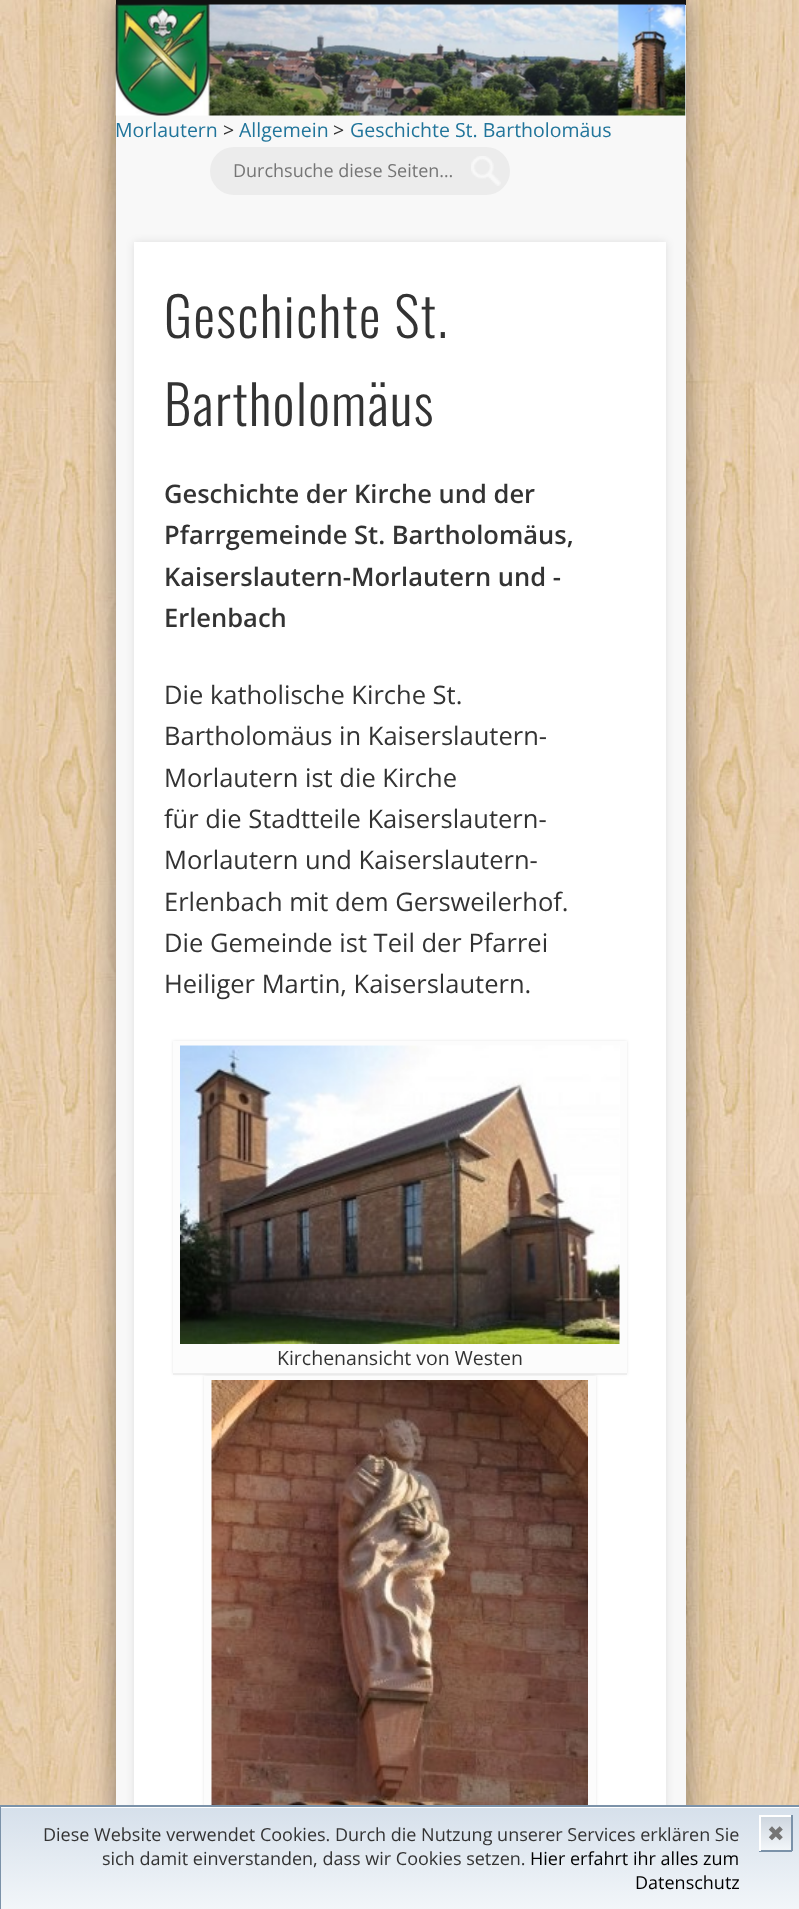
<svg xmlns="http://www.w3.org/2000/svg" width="799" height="1909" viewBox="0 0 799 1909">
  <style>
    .t1 { font: 19.5px Open Sans; fill: #21759b; }
    .t2 { font: 19.5px Open Sans; fill: #333; }
    .t3 { font: 18px Open Sans; fill: #757575; }
    .t4 { font: 300 54px Oswald; letter-spacing: 1.5px; fill: #333; }
    .t5 { font: 600 25.5px Open Sans; fill: #333; }
    .t6 { font: 25.5px Open Sans; fill: #333; }
    .t7 { font: 18px Open Sans; fill: #333; }
    .t8 { font: 18px Open Sans; fill: #000; }
    .t9 { font: 21px DejaVu Sans; fill: #757575; }
  </style>
  <defs>
    <linearGradient id="g1" gradientUnits="userSpaceOnUse" x1="400" y1="1808" x2="400" y2="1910"><stop offset="0" stop-color="#d6e0eb"/><stop offset="1" stop-color="#f2f6f9"/></linearGradient>
    <linearGradient id="g2" gradientUnits="userSpaceOnUse" x1="761" y1="1817" x2="761" y2="1850"><stop offset="0" stop-color="#ced6df"/><stop offset="1" stop-color="#f2f6f9"/></linearGradient>
  </defs>
  <rect width="100%" height="100%" fill="#fff"/>
  <image x="0" y="0" width="799" height="1805" href="images/1.png"/>
  <rect x="116" y="0" width="570" height="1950" fill="#00000066" filter="blur(13.5px)"/>
  <rect x="116" y="5" width="570" height="1800" fill="#f8f8f8"/>
  <rect x="116" y="0" width="570" height="5" fill="#111"/>
  <image x="115" y="4" width="571" height="112" href="images/2.png"/>
  <text x="115" y="137" class="t1">Morlautern</text>
  <text x="223" y="137" class="t2">&gt;</text>
  <text x="239" y="137" class="t1">Allgemein</text>
  <text x="333" y="137" class="t2">&gt;</text>
  <text x="350" y="137" class="t1">Geschichte St. Bartholomäus</text>
  <rect x="210" y="147" width="300" height="48" rx="24" fill="#ececec"/>
  <image x="471" y="156" width="30" height="30" href="images/3.png"/>
  <text x="233" y="177" class="t3">Durchsuche diese Seiten…</text>
  <rect x="134" y="242" width="532" height="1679" fill="#0000001a" filter="blur(4px)"/>
  <rect x="134" y="242" width="532" height="1563" fill="#fff"/>
  <text x="164" y="338" class="t4">Geschichte St.</text>
  <text x="164" y="426" class="t4">Bartholomäus</text>
  <text x="164" y="503" class="t5">Geschichte der Kirche und der</text>
  <text x="164" y="544" class="t5">Pfarrgemeinde St. Bartholomäus,</text>
  <text x="164" y="586" class="t5">Kaiserslautern-Morlautern und -</text>
  <text x="164" y="627" class="t5">Erlenbach</text>
  <text x="164" y="704" class="t6">Die katholische Kirche St.</text>
  <text x="164" y="745" class="t6">Bartholomäus in Kaiserslautern-</text>
  <text x="164" y="787" class="t6">Morlautern ist die Kirche</text>
  <text x="164" y="828" class="t6">für die Stadtteile Kaiserslautern-</text>
  <text x="164" y="869" class="t6">Morlautern und Kaiserslautern-</text>
  <text x="164" y="911" class="t6">Erlenbach mit dem Gersweilerhof.</text>
  <text x="164" y="952" class="t6">Die Gemeinde ist Teil der Pfarrei</text>
  <text x="164" y="993" class="t6">Heiliger Martin, Kaiserslautern.</text>
  <rect x="173" y="1041" width="454" height="333" fill="#0000001a" filter="blur(1.5px)"/>
  <rect x="173" y="1041" width="454" height="332" fill="#fcfcfc"/>
  <rect x="173" y="1373" width="454" height="2" fill="#eee"/>
  <rect x="619" y="1046" width="1" height="298" fill="#fff"/>
  <image x="180" y="1045" width="440" height="299" href="images/4.png"/>
  <text x="277" y="1365" class="t2">Kirchenansicht von Westen</text>
  <rect x="204" y="1376" width="392" height="502" fill="#0000001a" filter="blur(1.5px)"/>
  <rect x="204" y="1376" width="392" height="429" fill="#fcfcfc"/>
  <image x="211" y="1380" width="377" height="425" href="images/5.png"/>
  <rect x="1" y="1808" width="798" height="101" fill="url(#g1)"/>
  <rect x="90" y="1807" width="622" height="1" fill="#fff"/>
  <rect x="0" y="1806" width="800" height="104" fill="none" stroke="#7b92a9" stroke-width="2"/>
  <text x="43" y="1841" class="t7">Diese Website verwendet Cookies. Durch die Nutzung unserer Services erklären Sie</text>
  <text x="102" y="1865" class="t7">sich damit einverstanden, dass wir Cookies setzen.</text>
  <text x="530" y="1865" class="t8">Hier erfahrt ihr alles zum</text>
  <text x="635" y="1889" class="t8">Datenschutz</text>
  <rect x="761" y="1817" width="30" height="33" fill="url(#g2)"/>
  <rect x="759" y="1815" width="33" height="2" fill="#fff"/>
  <rect x="791" y="1815" width="2" height="36" fill="#7b92a9"/>
  <rect x="759" y="1850" width="33" height="2" fill="#7b92a9"/>
  <rect x="759" y="1815" width="2" height="36" fill="#fff"/>
  <text x="767" y="1841" class="t9">✖</text>
</svg>
